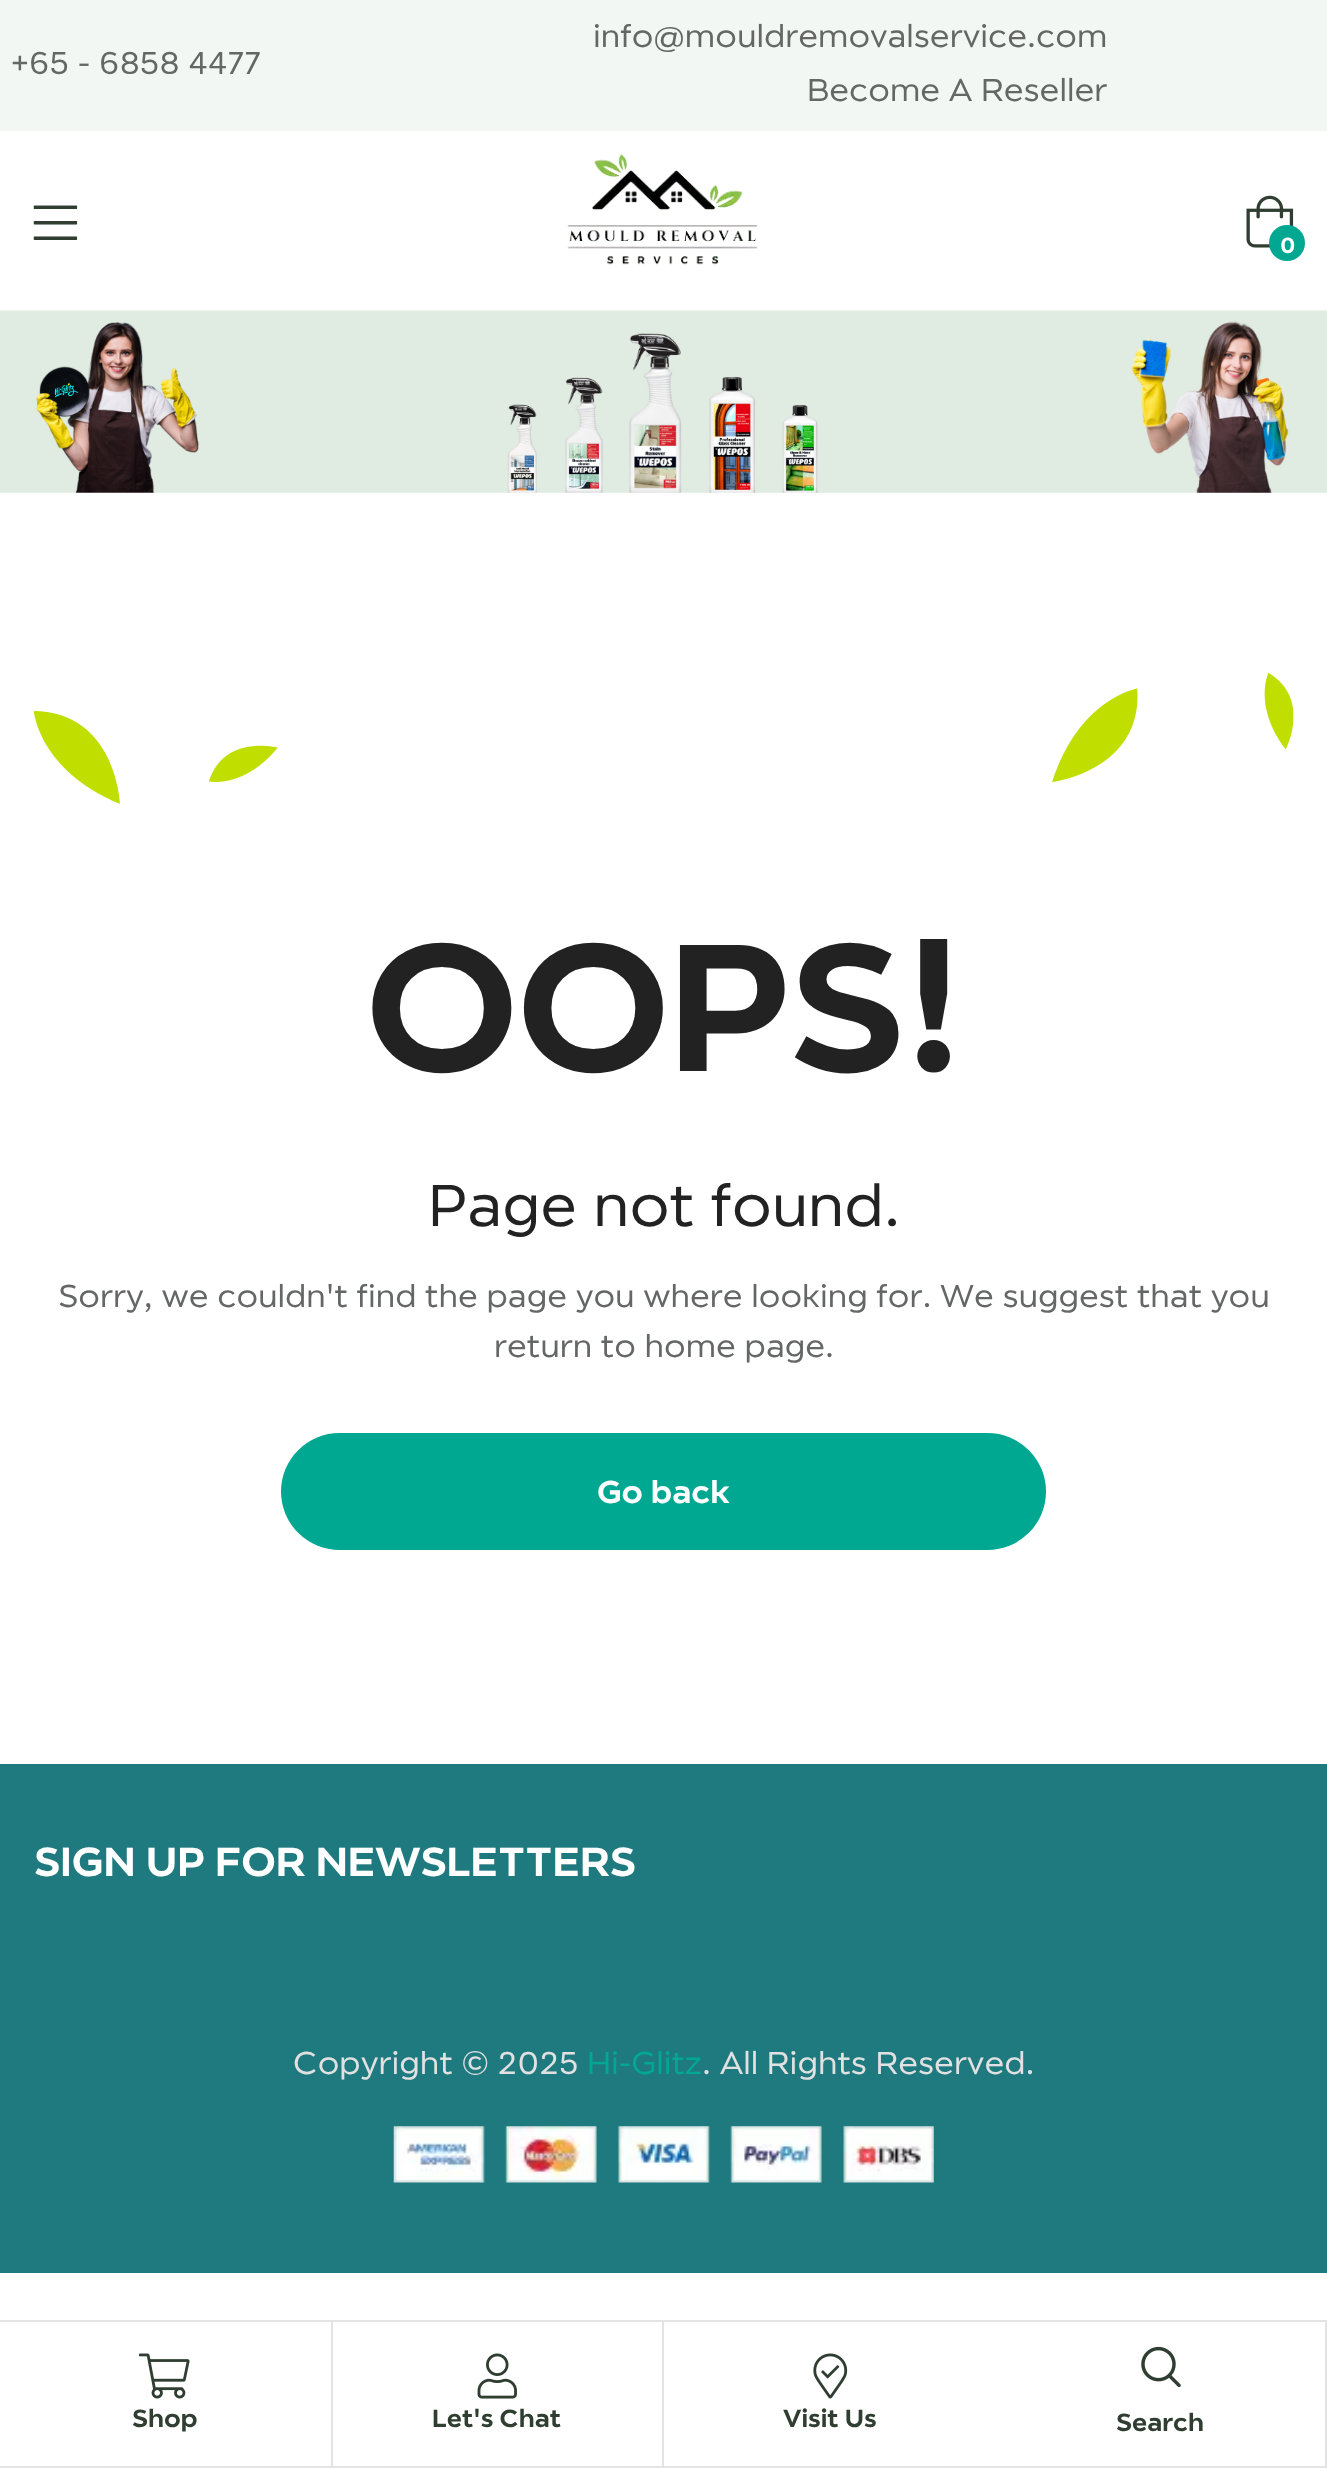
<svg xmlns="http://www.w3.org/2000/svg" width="1327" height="2468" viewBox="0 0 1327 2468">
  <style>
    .t1 { font: 31.5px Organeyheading; fill: #656766; }
    .t2 { font: 600 22px Organeyheading; fill: #fff; }
    .t3 { font: 600 180px Organeyheading; letter-spacing: -2.25px; fill: #222; }
    .t4 { font: 58.5px Organeyheading; fill: #222; }
    .t5 { font: 600 31.5px Organeyheading; fill: #fff; }
    .t6 { font: 600 40.5px Organeyheading; fill: #fff; }
    .t7 { font: 31.5px Organeyheading; fill: #e1e1e1; }
    .t8 { font: 31.5px Organeyheading; fill: #00a892; }
    .t9 { font: 600 24.75px Organeyheading; fill: #2f3e30; }
  </style>
  <rect width="100%" height="100%" fill="#fff"/>
  <rect x="0" y="0" width="1327" height="131" fill="#f2f7f3"/>
  <text x="11" y="74" class="t1">+65 - 6858 4477</text>
  <text x="593" y="47" class="t1">info@mouldremovalservice.com</text>
  <text x="807" y="101" class="t1">Become A Reseller</text>
  <image x="33" y="205" width="45" height="35" href="images/1.png"/>
  <image x="567" y="153" width="191" height="112" href="images/2.png"/>
  <image x="1246" y="195" width="48" height="53" href="images/3.png"/>
  <circle cx="1287" cy="243" r="18" fill="#00a892"/>
  <text x="1280" y="253" class="t2">0</text>
  <image x="0" y="310" width="1327" height="183" href="images/4.png"/>
  <image x="34" y="673" width="1260" height="131" href="images/5.png"/>
  <text x="365" y="1071" class="t3">OOPS!</text>
  <text x="428" y="1226" class="t4">Page not found.</text>
  <text x="58" y="1307" class="t1">Sorry, we couldn't find the page you where looking for. We suggest that you</text>
  <text x="494" y="1357" class="t1">return to home page.</text>
  <rect x="281" y="1433" width="765" height="117" rx="58.5" fill="#00a892"/>
  <text x="597" y="1503" class="t5">Go back</text>
  <rect x="0" y="1764" width="1327" height="509" fill="#1f7a7f"/>
  <text x="34" y="1876" class="t6">SIGN UP FOR NEWSLETTERS</text>
  <text x="293" y="2074" class="t7">Copyright © 2025</text>
  <text x="587" y="2074" class="t8">Hi-Glitz</text>
  <text x="702" y="2074" class="t7">. All Rights Reserved.</text>
  <image x="393" y="2126" width="541" height="57" href="images/6.png"/>
  <rect x="0" y="2320" width="1327" height="2" fill="#e4e4e4"/>
  <rect x="0" y="2466" width="1327" height="2" fill="#e4e4e4"/>
  <rect x="331" y="2322" width="2" height="144" fill="#e4e4e4"/>
  <image x="138" y="2353" width="52" height="46" href="images/7.png"/>
  <text x="132" y="2427" class="t9">Shop</text>
  <rect x="662" y="2322" width="2" height="144" fill="#e4e4e4"/>
  <image x="477" y="2353" width="40" height="46" href="images/8.png"/>
  <text x="432" y="2427" class="t9">Let's Chat</text>
  <image x="813" y="2353" width="35" height="46" href="images/9.png"/>
  <text x="783" y="2427" class="t9">Visit Us</text>
  <rect x="1325" y="2322" width="2" height="144" fill="#e4e4e4"/>
  <image x="1141" y="2346" width="40" height="42" href="images/10.png"/>
  <text x="1116" y="2431" class="t9">Search</text>
</svg>
